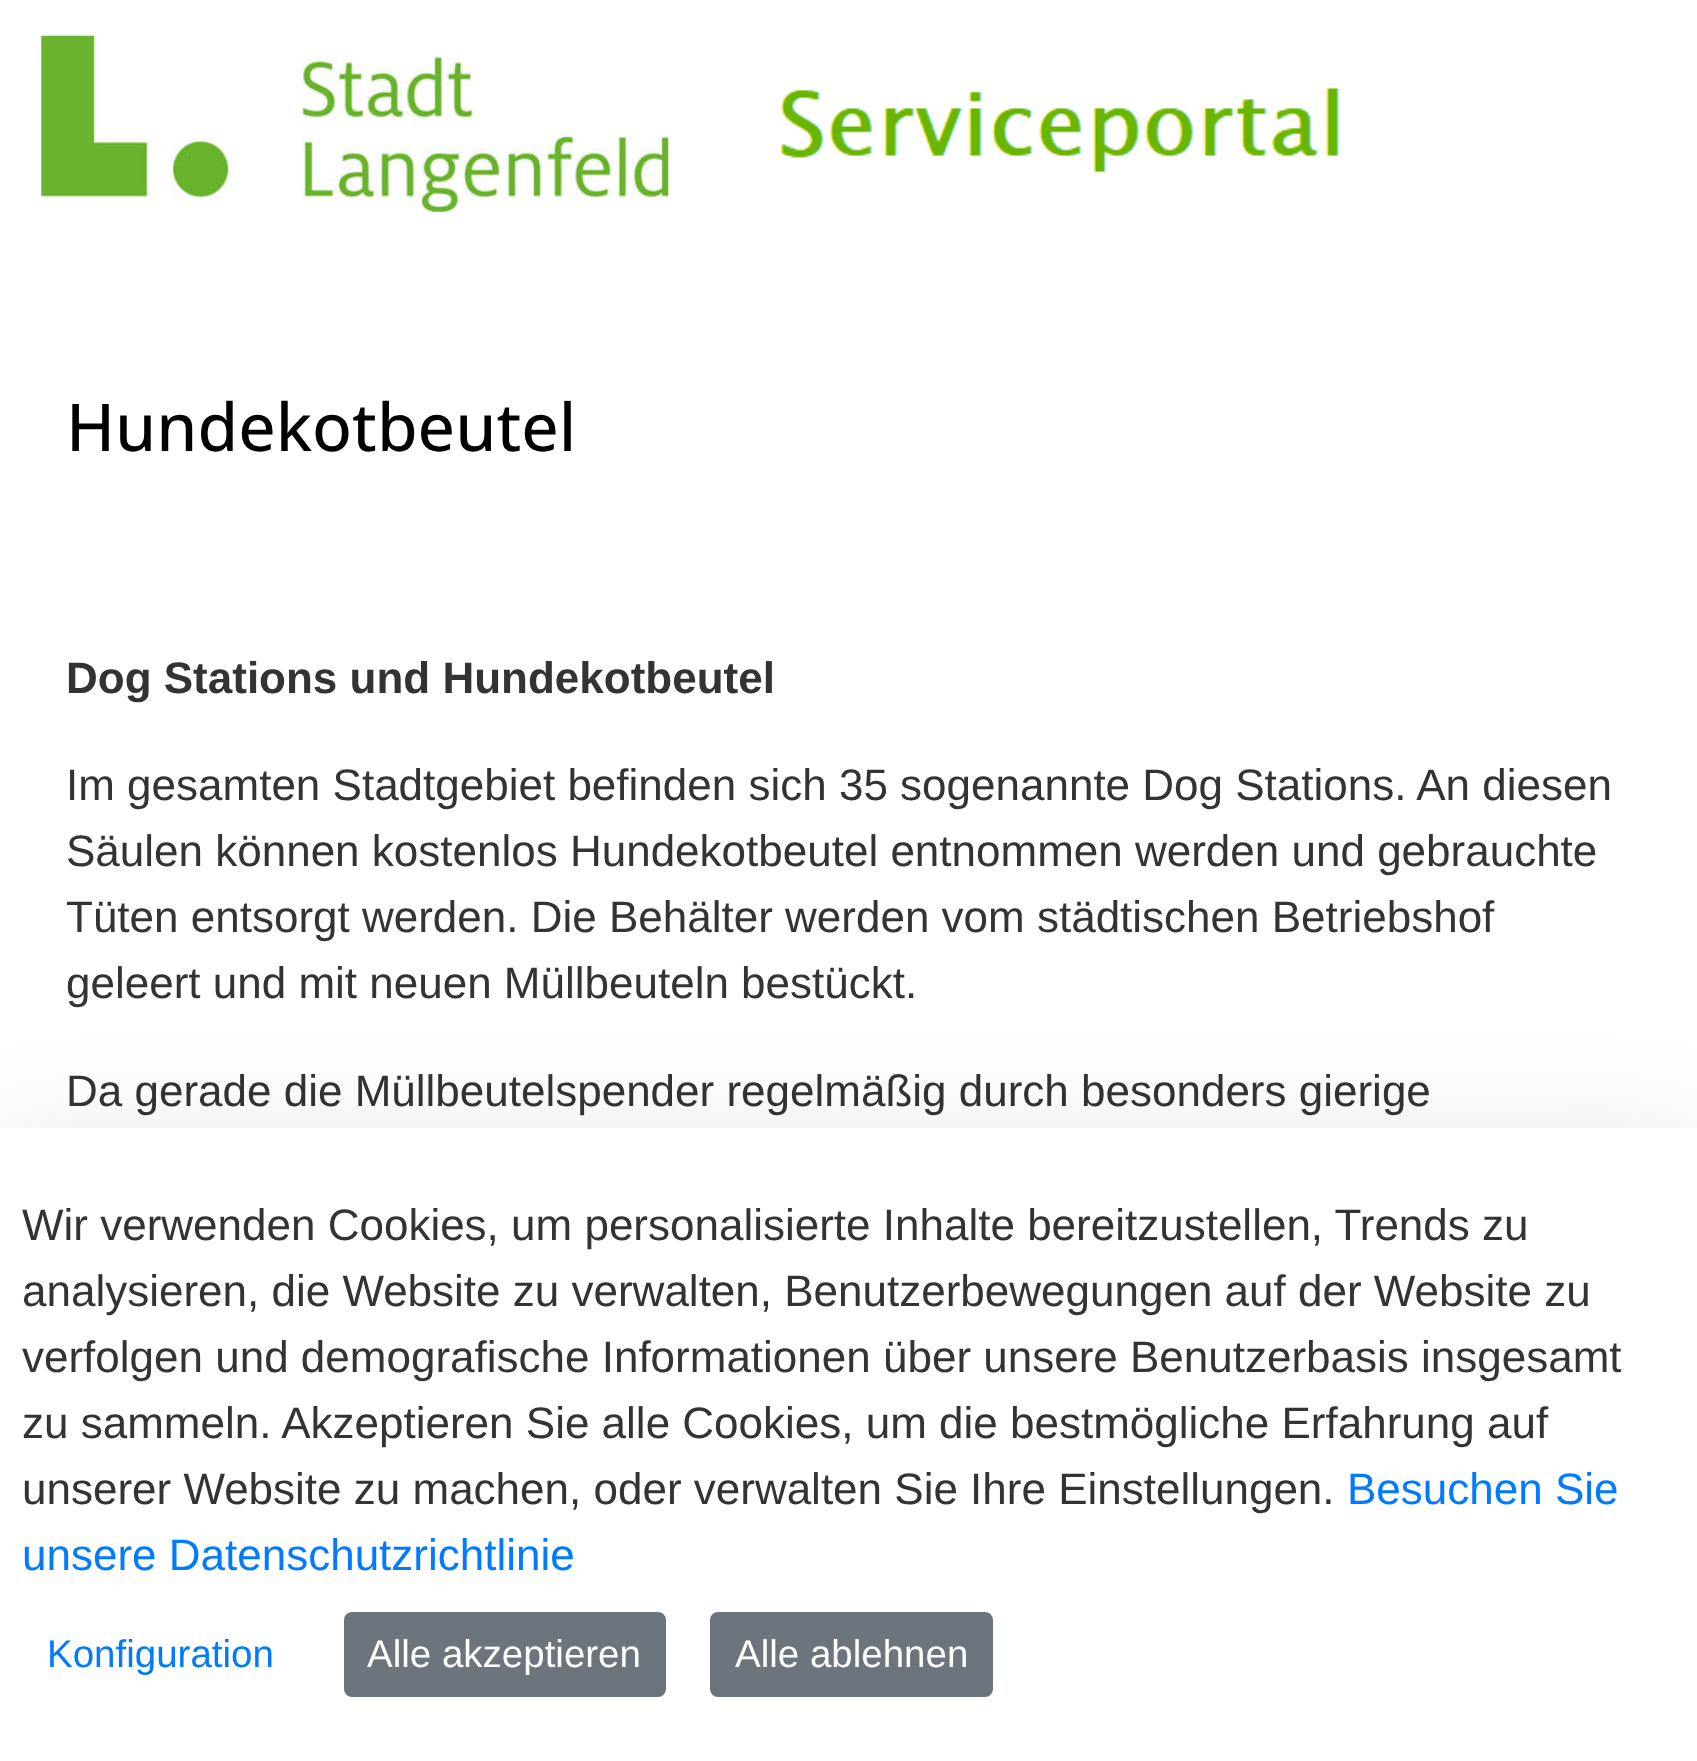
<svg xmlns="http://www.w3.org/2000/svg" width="1697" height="1761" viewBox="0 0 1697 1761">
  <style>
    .t1 { font: 500 66px Open Sans; fill: #000; }
    .t2 { font: bold 44px Liberation Sans; fill: #333; }
    .t3 { font: 44px Liberation Sans; fill: #333; }
    .t4 { font: 44px Liberation Sans; fill: #007bff; }
    .t5 { font: 38.5px Liberation Sans; fill: #007bff; }
    .t6 { font: 38.5px Liberation Sans; fill: #fff; }
  </style>
  <rect width="100%" height="100%" fill="#fff"/>
  <image x="41" y="35" width="628" height="177" href="images/1.png"/>
  <image x="781" y="88" width="559" height="85" href="images/2.png"/>
  <text x="66" y="451" class="t1">Hundekotbeutel</text>
  <text x="66" y="693" class="t2">Dog Stations und Hundekotbeutel</text>
  <text x="66" y="800" class="t3">Im gesamten Stadtgebiet befinden sich 35 sogenannte Dog Stations. An diesen</text>
  <text x="66" y="866" class="t3">Säulen können kostenlos Hundekotbeutel entnommen werden und gebrauchte</text>
  <text x="66" y="932" class="t3">Tüten entsorgt werden. Die Behälter werden vom städtischen Betriebshof</text>
  <text x="66" y="998" class="t3">geleert und mit neuen Müllbeuteln bestückt.</text>
  <text x="66" y="1106" class="t3">Da gerade die Müllbeutelspender regelmäßig durch besonders gierige</text>
  <rect x="0" y="1172" width="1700" height="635" fill="#0000002e" filter="blur(66px)"/>
  <rect x="0" y="1128" width="1697" height="633" fill="#fff"/>
  <text x="22" y="1240" class="t3">Wir verwenden Cookies, um personalisierte Inhalte bereitzustellen, Trends zu</text>
  <text x="22" y="1306" class="t3">analysieren, die Website zu verwalten, Benutzerbewegungen auf der Website zu</text>
  <text x="22" y="1372" class="t3">verfolgen und demografische Informationen über unsere Benutzerbasis insgesamt</text>
  <text x="22" y="1438" class="t3">zu sammeln. Akzeptieren Sie alle Cookies, um die bestmögliche Erfahrung auf</text>
  <text x="22" y="1504" class="t3">unserer Website zu machen, oder verwalten Sie Ihre Einstellungen.</text>
  <text x="1347" y="1504" class="t4">Besuchen Sie</text>
  <text x="22" y="1570" class="t4">unsere Datenschutzrichtlinie</text>
  <text x="47" y="1667" class="t5">Konfiguration</text>
  <rect x="345.5" y="1613.5" width="319" height="82" rx="6.5" fill="#6c757d" stroke="#6c757d" stroke-width="3"/>
  <text x="367" y="1667" class="t6">Alle akzeptieren</text>
  <rect x="711.5" y="1613.5" width="280" height="82" rx="6.5" fill="#6c757d" stroke="#6c757d" stroke-width="3"/>
  <text x="735" y="1667" class="t6">Alle ablehnen</text>
</svg>
